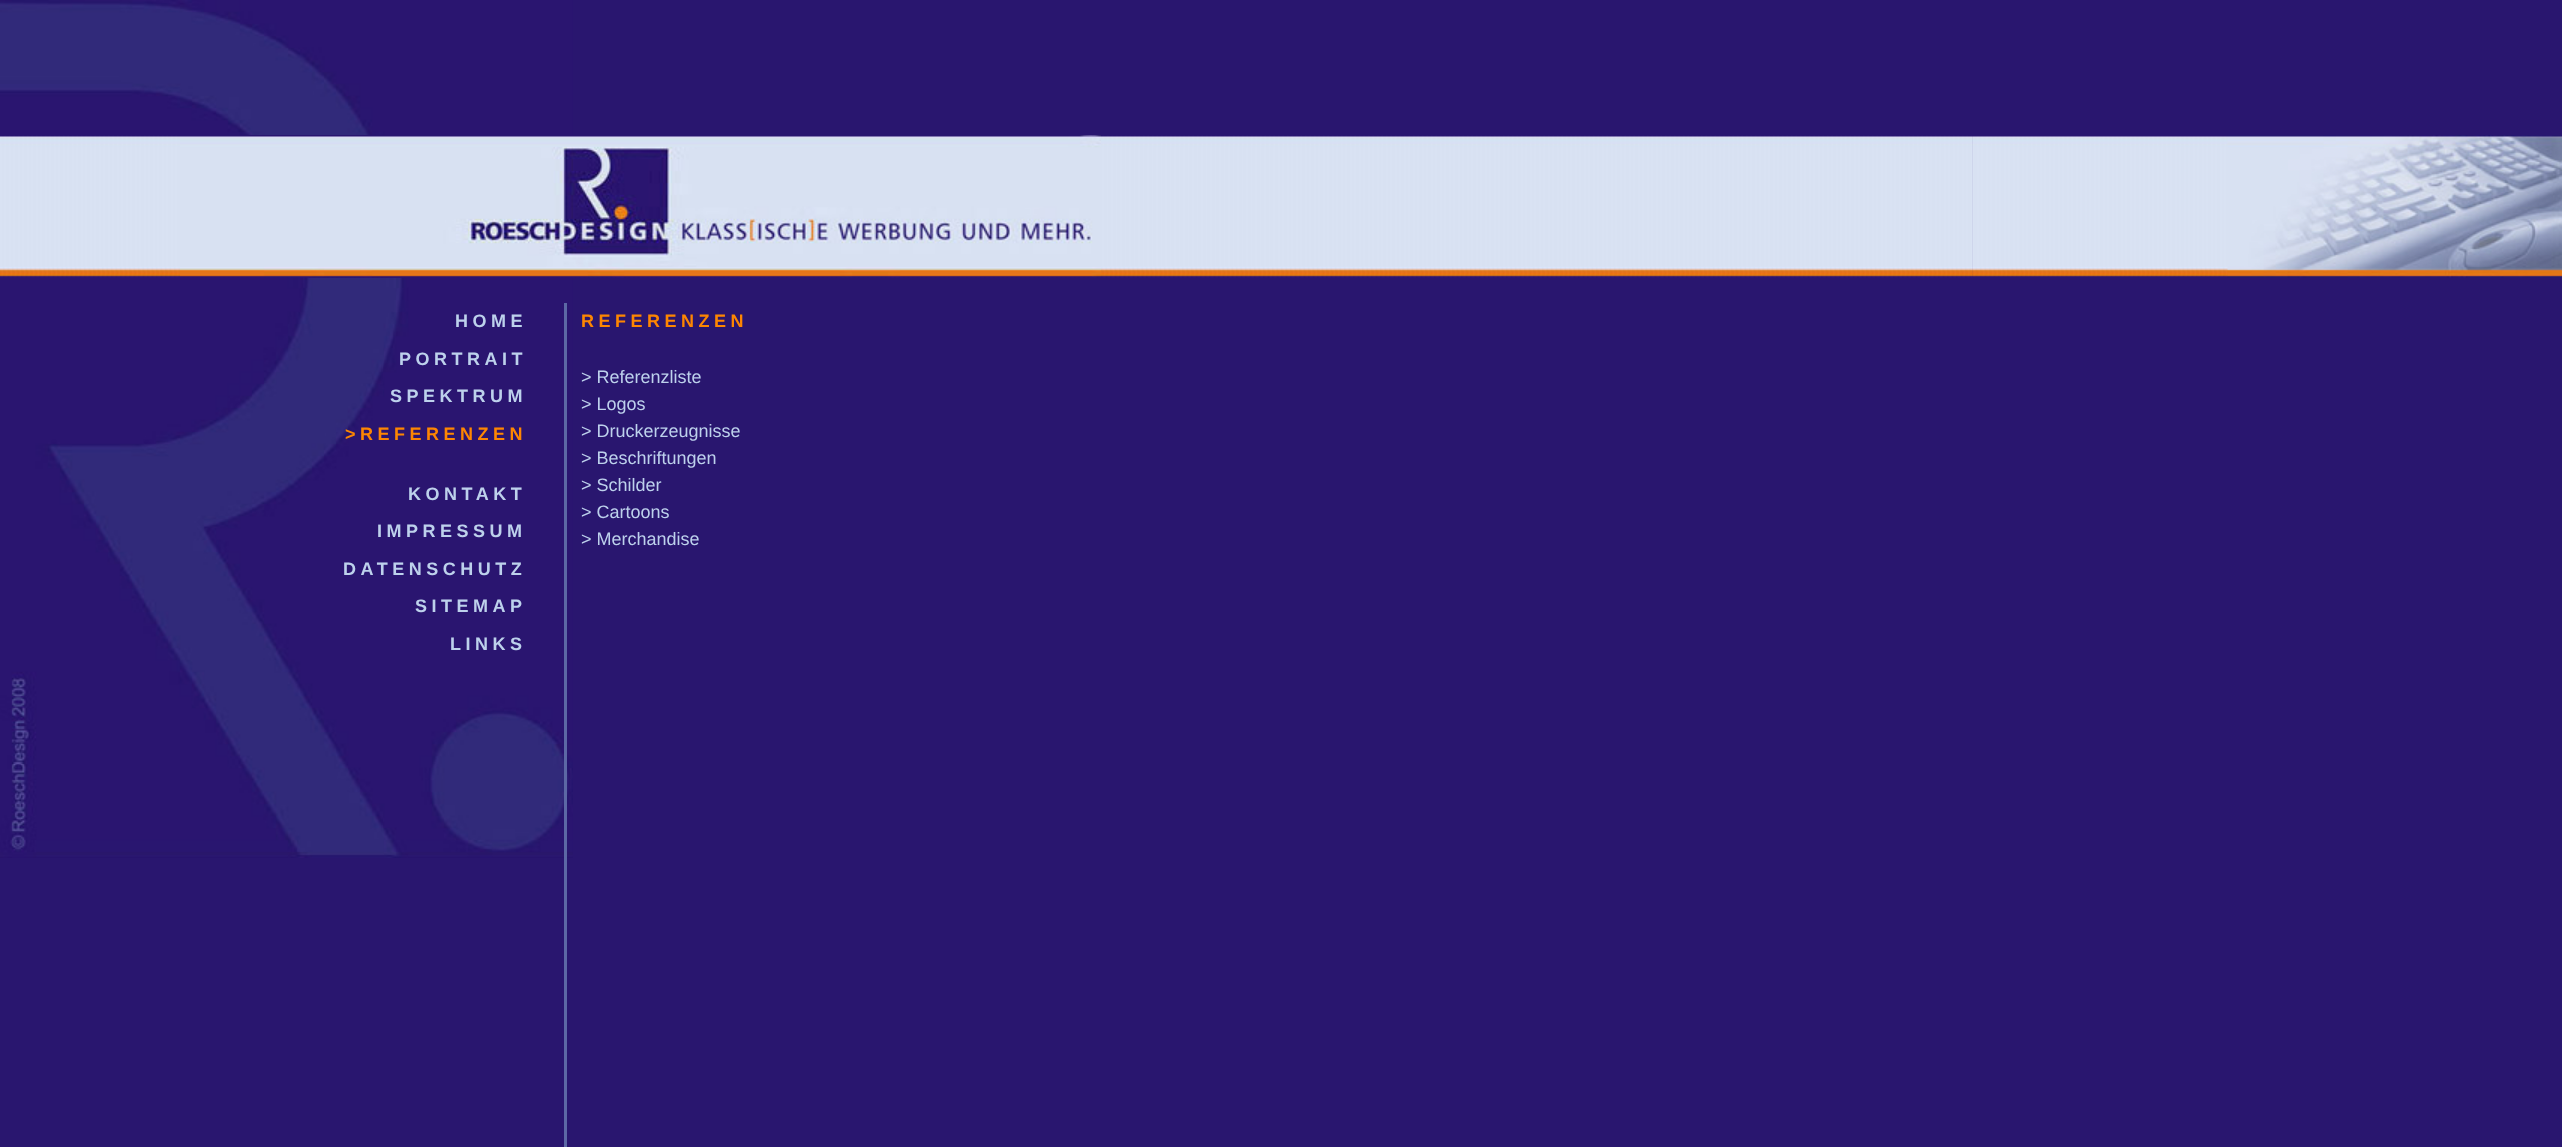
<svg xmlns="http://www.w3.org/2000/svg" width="2562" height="1147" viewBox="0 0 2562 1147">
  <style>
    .t1 { font: bold 18px Liberation Sans; letter-spacing: 4.5px; fill: #bdd1ec; }
    .t2 { font: bold 18px Liberation Sans; letter-spacing: 4.5px; fill: #fd8602; }
    .t3 { font: 18px Liberation Sans; fill: #bdd1ec; }
  </style>
  <rect width="100%" height="100%" fill="#29166f"/>
  <image x="0" y="0" width="573" height="858" href="images/1.png"/>
  <image x="0" y="135" width="1973" height="143" href="images/2.png"/>
  <image x="309" y="136" width="1664" height="142" href="images/3.png"/>
  <image x="180" y="135" width="921" height="143" href="images/4.png"/>
  <image x="1972" y="136" width="256" height="141" href="images/5.png"/>
  <image x="1972" y="136" width="1" height="140" href="images/6.png"/>
  <image x="2227" y="135" width="335" height="143" href="images/7.png"/>
  <text x="455" y="327" class="t1">HOME</text>
  <text x="399" y="365" class="t1">PORTRAIT</text>
  <text x="390" y="402" class="t1">SPEKTRUM</text>
  <text x="345" y="440" class="t2">&gt;REFERENZEN</text>
  <text x="408" y="500" class="t1">KONTAKT</text>
  <text x="377" y="537" class="t1">IMPRESSUM</text>
  <text x="343" y="575" class="t1">DATENSCHUTZ</text>
  <text x="415" y="612" class="t1">SITEMAP</text>
  <text x="450" y="650" class="t1">LINKS</text>
  <rect x="564" y="303" width="3" height="844" fill="#5c68a5"/>
  <text x="581" y="327" class="t2">REFERENZEN</text>
  <text x="581" y="383" class="t3">&gt; Referenzliste</text>
  <text x="581" y="410" class="t3">&gt; Logos</text>
  <text x="581" y="437" class="t3">&gt; Druckerzeugnisse</text>
  <text x="581" y="464" class="t3">&gt; Beschriftungen</text>
  <text x="581" y="491" class="t3">&gt; Schilder</text>
  <text x="581" y="518" class="t3">&gt; Cartoons</text>
  <text x="581" y="545" class="t3">&gt; Merchandise</text>
</svg>
